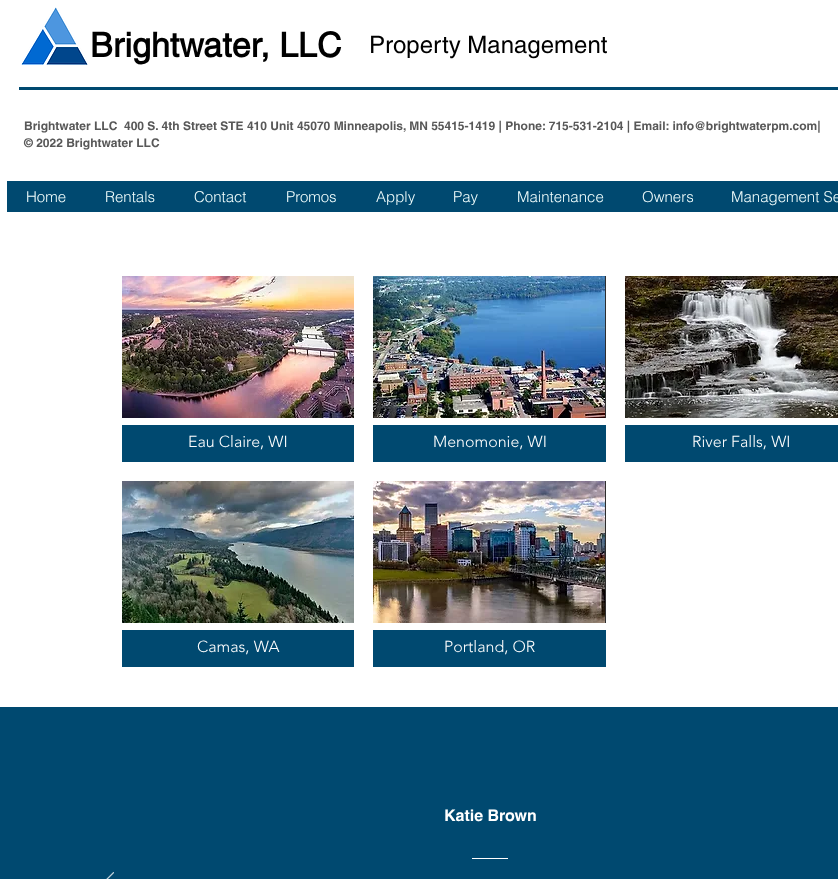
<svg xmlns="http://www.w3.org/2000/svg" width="838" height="879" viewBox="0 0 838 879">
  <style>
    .t1 { font: bold 34px helvetica; fill: #000; }
    .t2 { font: 24px helvetica; fill: #000; }
    .t3 { font: bold 12px 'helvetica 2'; fill: #585858; }
    .t4 { font: 300 15px helvetica; fill: #f1fefd; }
    .t5 { font: 300 16px 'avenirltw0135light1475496'; fill: #fff; }
    .t6 { font: bold 16px 'helvetica 2'; fill: #fff; }
  </style>
  <rect width="100%" height="100%" fill="#fff"/>
  <image x="21" y="7" width="67" height="58" href="images/1.png"/>
  <text x="90" y="57" class="t1">Brightwater, LLC</text>
  <text x="369" y="53" class="t2">Property Management</text>
  <text x="24" y="130" class="t3" xml:space="preserve">Brightwater LLC  400 S. 4th Street STE 410 Unit 45070 Minneapolis, MN 55415-1419 | Phone: 715-531-2104 | Email: info@brightwaterpm.com|</text>
  <text x="24" y="147" class="t3">© 2022 Brightwater LLC</text>
  <rect x="7" y="181" width="831" height="31" fill="#004970"/>
  <text x="26" y="202" class="t4">Home</text>
  <text x="105" y="202" class="t4">Rentals</text>
  <text x="194" y="202" class="t4">Contact</text>
  <text x="286" y="202" class="t4">Promos</text>
  <text x="376" y="202" class="t4">Apply</text>
  <text x="453" y="202" class="t4">Pay</text>
  <text x="517" y="202" class="t4">Maintenance</text>
  <text x="642" y="202" class="t4">Owners</text>
  <text x="731" y="202" class="t4">Management Se</text>
  <rect x="19" y="87" width="819" height="3" fill="#004970"/>
  <image x="122" y="276" width="232" height="142" href="images/2.png"/>
  <rect x="122" y="425" width="232" height="37" fill="#004970"/>
  <text x="188" y="447" class="t5">Eau Claire, WI</text>
  <rect x="605" y="276" width="1" height="142" fill="#2f2e2e"/>
  <image x="373" y="276" width="232" height="142" href="images/3.png"/>
  <rect x="373" y="425" width="233" height="37" fill="#004970"/>
  <text x="433" y="447" class="t5">Menomonie, WI</text>
  <image x="625" y="276" width="213" height="142" href="images/4.png"/>
  <rect x="625" y="425" width="213" height="37" fill="#004970"/>
  <text x="692" y="447" class="t5">River Falls, WI</text>
  <image x="122" y="481" width="232" height="142" href="images/5.png"/>
  <rect x="122" y="630" width="232" height="37" fill="#004970"/>
  <text x="197" y="652" class="t5">Camas, WA</text>
  <rect x="605" y="481" width="1" height="142" fill="#2f2e2e"/>
  <image x="373" y="481" width="232" height="142" href="images/6.png"/>
  <rect x="373" y="630" width="233" height="37" fill="#004970"/>
  <text x="444" y="652" class="t5">Portland, OR</text>
  <rect x="0" y="707" width="838" height="172" fill="#004970"/>
  <text x="444" y="821" class="t6">Katie Brown</text>
  <rect x="472" y="858" width="36" height="1" fill="#fff"/>
  <image x="106" y="872" width="8" height="7" href="images/7.png"/>
</svg>
